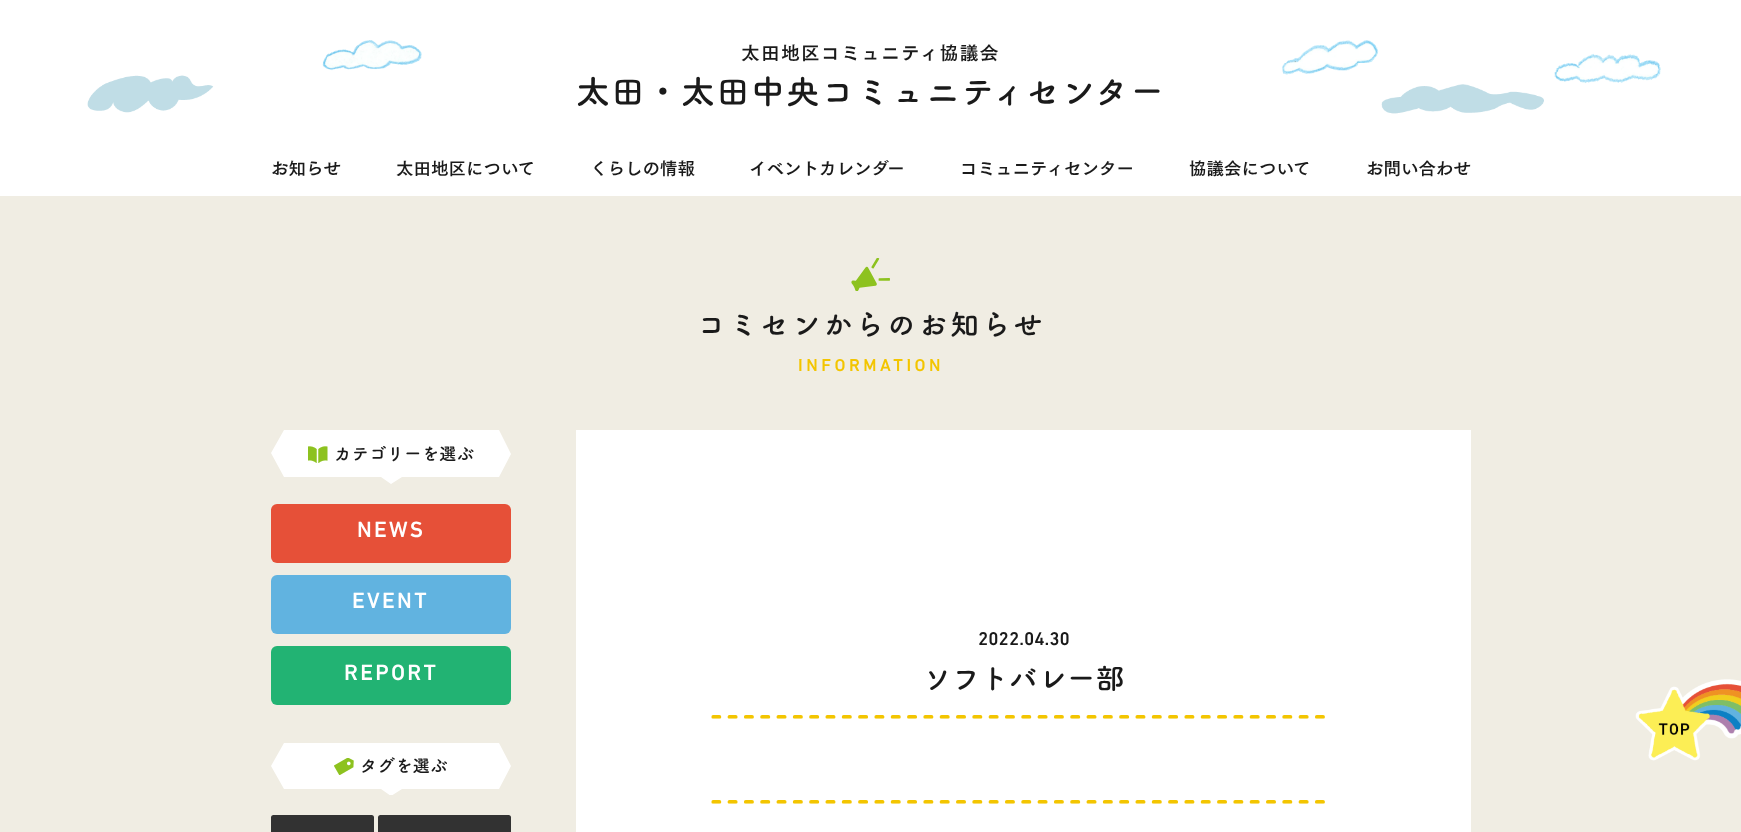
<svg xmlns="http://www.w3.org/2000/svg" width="1741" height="832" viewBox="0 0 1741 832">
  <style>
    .t1 { font: bold 18.75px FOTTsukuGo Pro; letter-spacing: 1.25px; fill: #1a1a1a; }
    .t2 { font: bold 33.75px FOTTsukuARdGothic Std; letter-spacing: 1.25px; fill: #1a1a1a; }
    .t3 { font: bold 17.5px FOTTsukuGo Pro; fill: #1a1a1a; }
    .t4 { font: bold 28.75px FOTTsukuARdGothic Std; letter-spacing: 2.9px; fill: #1a1a1a; }
    .t5 { font: 500 17.5px DIN Next; letter-spacing: 3.5px; fill: #f3c500; }
    .t6 { font: bold 17.5px FOTTsukuARdGothic Std; fill: #1a1a1a; }
    .t7 { font: 500 22.5px DIN Next; letter-spacing: 2.25px; fill: #fff; }
    .t8 { font: 500 18.75px DIN Next; fill: #1a1a1a; }
    .t9 { font: bold 28.75px FOTTsukuARdGothic Std; fill: #1a1a1a; }
  </style>
  <defs>
    <clipPath id="clip1"><rect x="271" y="743" width="240" height="52"/></clipPath>
  </defs>
  <rect width="100%" height="100%" fill="#f0ede3"/>
  <rect x="0" y="0" width="1741" height="196" fill="#fff"/>
  <image x="87" y="40" width="335" height="73" href="images/1.png"/>
  <text x="741" y="60" class="t1">太田地区コミュニティ協議会</text>
  <text x="576" y="104" class="t2">太田・太田中央コミュニティセンター</text>
  <image x="1282" y="40" width="379" height="74" href="images/2.png"/>
  <text x="271" y="175" class="t3">お知らせ</text>
  <text x="396" y="175" class="t3">太田地区について</text>
  <text x="590" y="175" class="t3">くらしの情報</text>
  <text x="749" y="175" class="t3">イベントカレンダー</text>
  <text x="960" y="175" class="t3">コミュニティセンター</text>
  <text x="1189" y="175" class="t3">協議会について</text>
  <text x="1366" y="175" class="t3">お問い合わせ</text>
  <image x="851" y="258" width="39" height="33" href="images/3.png"/>
  <text x="697" y="335" class="t4">コミセンからのお知らせ</text>
  <text x="798" y="371" class="t5">INFORMATION</text>
  <path d="M271 453L284 430H499L511 454L499 477H402L391 484L381 477H284Z" fill="#fff"/>
  <image x="308" y="446" width="20" height="17" href="images/4.png"/>
  <text x="334" y="460" class="t6">カテゴリーを選ぶ</text>
  <rect x="271" y="504" width="240" height="59" rx="6" fill="#e65038"/>
  <text x="357" y="537" class="t7">NEWS</text>
  <rect x="271" y="575" width="240" height="59" rx="6" fill="#61b3e0"/>
  <text x="352" y="608" class="t7">EVENT</text>
  <rect x="271" y="646" width="240" height="59" rx="6" fill="#22b373"/>
  <text x="344" y="680" class="t7">REPORT</text>
  <g clip-path="url(#clip1)">
    <path d="M271 766L284 743H499L511 766L499 789H402L391 796L381 789H284Z" fill="#fff"/>
  </g>
  <image x="334" y="758" width="20" height="17" href="images/5.png"/>
  <text x="360" y="772" class="t6">タグを選ぶ</text>
  <rect x="271" y="815" width="103" height="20" rx="2.5" fill="#323232"/>
  <rect x="378" y="815" width="133" height="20" rx="2.5" fill="#323232"/>
  <rect x="576" y="430" width="895" height="402" fill="#fff"/>
  <text x="978" y="645" class="t8">2022.04.30</text>
  <text x="923" y="689" class="t9">ソフトバレー部</text>
  <image x="711" y="715" width="614" height="4" href="images/6.png"/>
  <image x="711" y="800" width="614" height="4" href="images/6.png"/>
  <image x="1635" y="679" width="106" height="82" href="images/7.png"/>
</svg>
